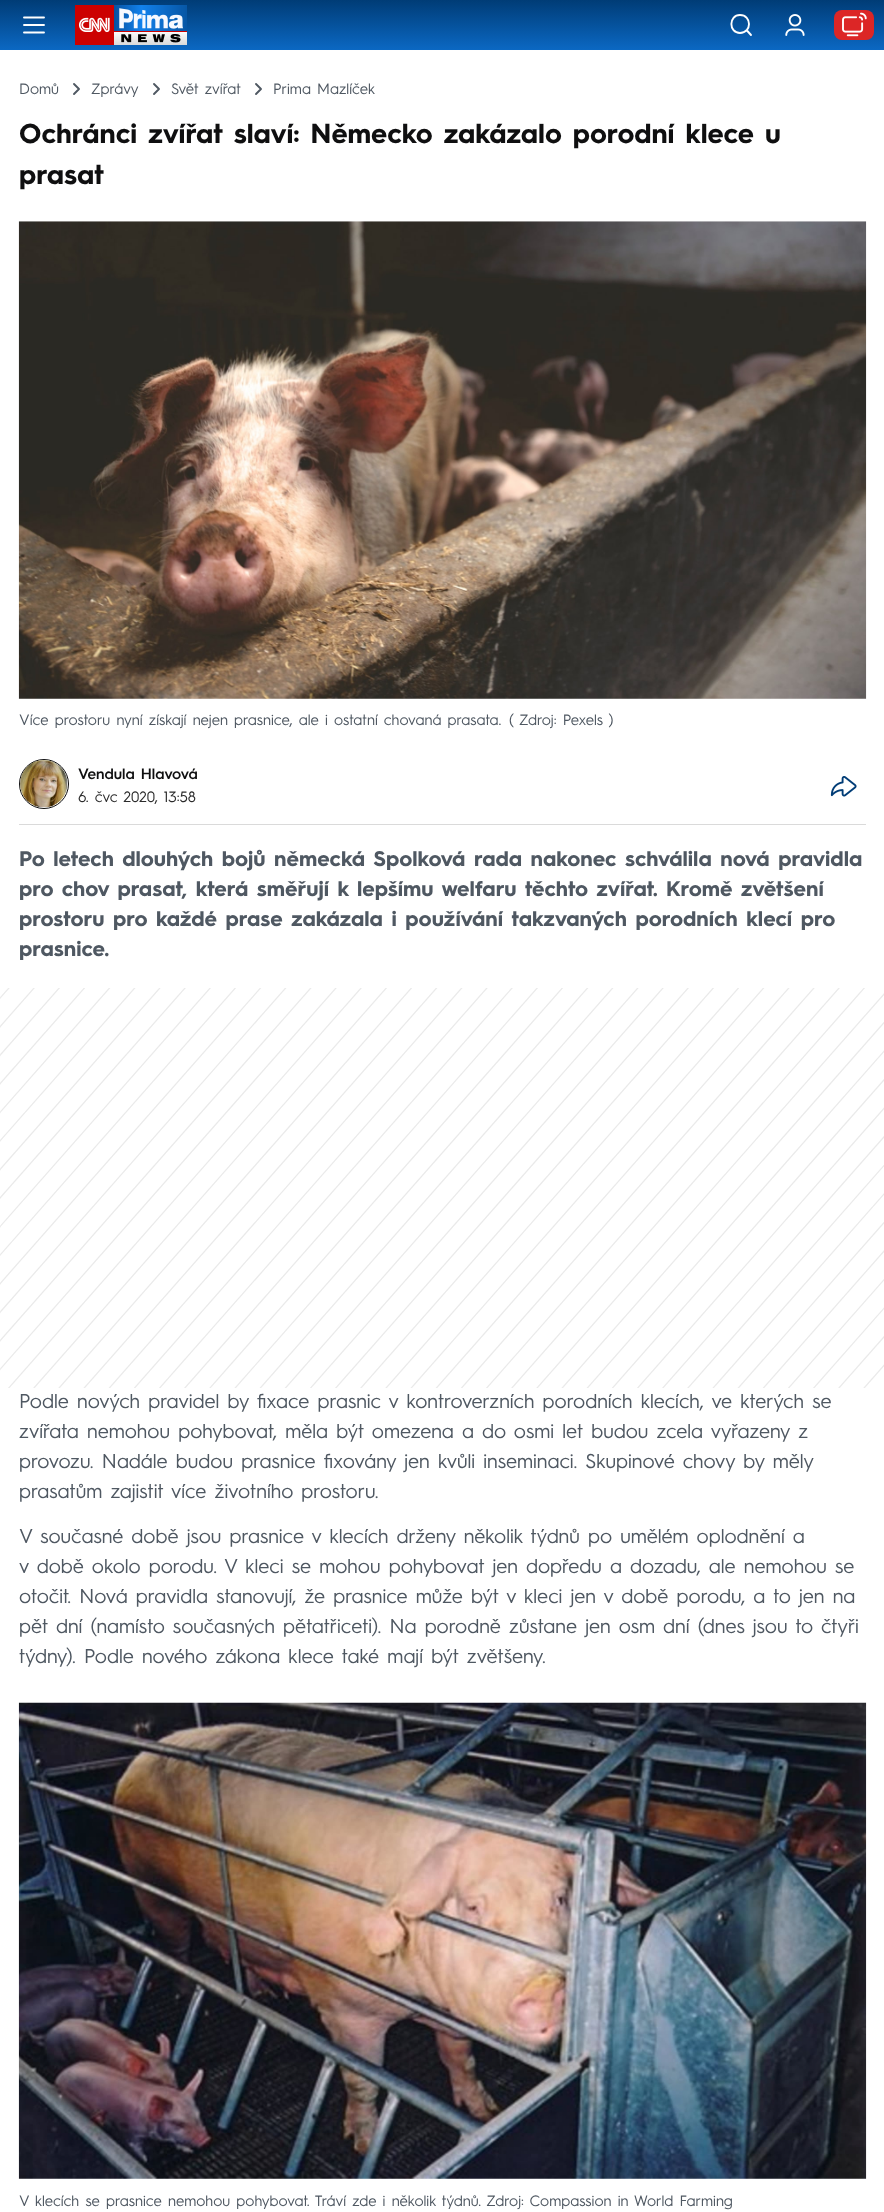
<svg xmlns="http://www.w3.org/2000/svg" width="884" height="2212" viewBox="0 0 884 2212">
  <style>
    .t1 { font: 15px 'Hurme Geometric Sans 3'; fill: #4f5862; }
    .t2 { font: bold 27.5px 'Hurme Geometric Sans 3'; fill: #0f0f10; }
    .t3 { font: 600 15px 'Hurme Geometric Sans 3'; fill: #0f0f10; }
    .t4 { font: 15px 'Hurme Geometric Sans 3'; fill: #2b2b2b; }
    .t5 { font: bold 21.25px 'Hurme Geometric Sans 3'; fill: #4f5862; }
    .t6 { font: 20px 'Hurme Geometric Sans 3'; fill: #4f5862; }
  </style>
  <defs>
    <linearGradient id="g1" gradientUnits="userSpaceOnUse" x1="443" y1="0" x2="443" y2="50"><stop offset="0" stop-color="#003c76"/><stop offset="1" stop-color="#0b68c3"/></linearGradient>
  </defs>
  <rect width="100%" height="100%" fill="#fff"/>
  <rect x="0" y="0" width="884" height="50" fill="url(#g1)"/>
  <path d="M24 32.5H44M24 25H44M24 17.5H44" fill="none" stroke="#fff" stroke-width="1.9" stroke-linecap="round" stroke-linejoin="round"/>
  <image x="75" y="5" width="112" height="40" href="images/1.png"/>
  <path d="M740 33C752 33 752 15 740 15C728.5 15 728.5 33 740 33ZM751 35L746.5 30" fill="none" stroke="#fff" stroke-width="1.9" stroke-linecap="round" stroke-linejoin="round"/>
  <image x="785" y="14" width="20" height="22" href="images/2.png"/>
  <rect x="834" y="10" width="40" height="30" rx="8" fill="#dc2626"/>
  <image x="842" y="12" width="25" height="25" href="images/3.png"/>
  <text x="19" y="94" class="t1">Domů</text>
  <path d="M74 94L79 89L74 84" fill="none" stroke="#4f5862" stroke-width="1.9" stroke-linecap="round" stroke-linejoin="round"/>
  <text x="91" y="94" class="t1">Zprávy</text>
  <path d="M154 94L159 89L154 84" fill="none" stroke="#4f5862" stroke-width="1.9" stroke-linecap="round" stroke-linejoin="round"/>
  <text x="171" y="94" class="t1">Svět zvířat</text>
  <path d="M256 94L261 89L256 84" fill="none" stroke="#4f5862" stroke-width="1.9" stroke-linecap="round" stroke-linejoin="round"/>
  <text x="273" y="94" class="t1">Prima Mazlíček</text>
  <text x="19" y="143" class="t2">Ochránci zvířat slaví: Německo zakázalo porodní klece u</text>
  <text x="19" y="184" class="t2">prasat</text>
  <image x="18" y="221" width="849" height="478" href="images/4.png"/>
  <text x="19" y="725" class="t1">Více prostoru nyní získají nejen prasnice, ale i ostatní chovaná prasata.</text>
  <text x="509" y="725" class="t1">(</text>
  <text x="519" y="725" class="t1">Zdroj: Pexels )</text>
  <circle cx="44" cy="784" r="24.5" fill="none" stroke="#0f0f10"/>
  <image x="20" y="760" width="48" height="48" href="images/5.png"/>
  <text x="78" y="779" class="t3">Vendula Hlavová</text>
  <text x="78" y="802" class="t4">6. čvc 2020, 13:58</text>
  <image x="830" y="776" width="27" height="21" href="images/6.png"/>
  <rect x="19" y="824" width="847" height="1" fill="#dadada"/>
  <text x="19" y="866" class="t5">Po letech dlouhých bojů německá Spolková rada nakonec schválila nová pravidla</text>
  <text x="19" y="896" class="t5">pro chov prasat, která směřují k lepšímu welfaru těchto zvířat. Kromě zvětšení</text>
  <text x="19" y="926" class="t5">prostoru pro každé prase zakázala i používání takzvaných porodních klecí pro</text>
  <text x="19" y="956" class="t5">prasnice.</text>
  <image x="0" y="988" width="884" height="400" href="images/7.png"/>
  <text x="19" y="1408" class="t6">Podle nových pravidel by fixace prasnic v kontroverzních porodních klecích, ve kterých se</text>
  <text x="19" y="1438" class="t6">zvířata nemohou pohybovat, měla být omezena a do osmi let budou zcela vyřazeny z</text>
  <text x="19" y="1468" class="t6">provozu. Nadále budou prasnice fixovány jen kvůli inseminaci. Skupinové chovy by měly</text>
  <text x="19" y="1498" class="t6">prasatům zajistit více životního prostoru.</text>
  <text x="19" y="1543" class="t6">V současné době jsou prasnice v klecích drženy několik týdnů po umělém oplodnění a</text>
  <text x="19" y="1573" class="t6">v době okolo porodu. V kleci se mohou pohybovat jen dopředu a dozadu, ale nemohou se</text>
  <text x="19" y="1603" class="t6">otočit. Nová pravidla stanovují, že prasnice může být v kleci jen v době porodu, a to jen na</text>
  <text x="19" y="1633" class="t6">pět dní (namísto současných pětatřiceti). Na porodně zůstane jen osm dní (dnes jsou to čtyři</text>
  <text x="19" y="1663" class="t6">týdny). Podle nového zákona klece také mají být zvětšeny.</text>
  <image x="18" y="1702" width="849" height="477" href="images/8.png"/>
  <text x="19" y="2206" class="t1">V klecích se prasnice nemohou pohybovat. Tráví zde i několik týdnů. Zdroj: Compassion in World Farming</text>
</svg>
